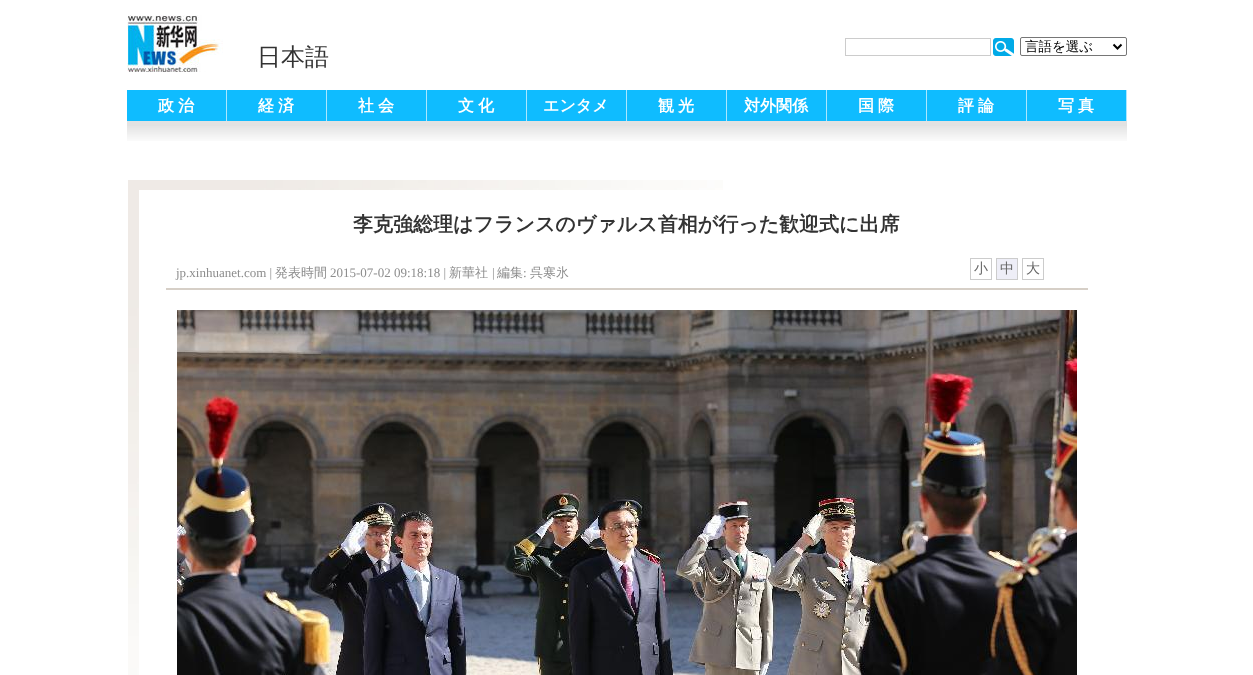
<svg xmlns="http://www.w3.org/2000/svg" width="1253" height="675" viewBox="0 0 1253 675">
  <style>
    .t1 { font: 500 24px WenQuanYi Zen Hei; fill: #333; }
    .t2 { font: 500 13.5px WenQuanYi Zen Hei; fill: #000; }
    .t3 { font: bold 16px WenQuanYi Zen Hei; fill: #fff; }
    .t4 { font: bold 20px WenQuanYi Zen Hei; fill: #333; }
    .t5 { font: 13px Liberation Serif; fill: #8d8d8d; }
    .t6 { font: 500 13px WenQuanYi Zen Hei; fill: #8d8d8d; }
    .t7 { font: 500 14px WenQuanYi Zen Hei; fill: #666; }
  </style>
  <rect width="100%" height="100%" fill="#fff"/>
  <image x="127" y="15" width="96" height="57" href="images/1.png"/>
  <text x="257" y="65" class="t1">日本語</text>
  <rect x="845.5" y="38.5" width="145" height="17" fill="none" stroke="#ccc"/>
  <image x="993" y="38" width="21" height="18" href="images/2.png"/>
  <rect x="1020.5" y="37.5" width="106" height="18" rx="1.5" fill="none" stroke="#767676"/>
  <path d="M1113.5 44.5L1117.5 48.5L1121.5 44.5" fill="none" stroke="#000" stroke-width="2"/>
  <text x="1025" y="51" class="t2">言語を選ぶ</text>
  <rect x="127" y="121" width="1000" height="5" fill="#e2e2e2"/>
  <rect x="127" y="90" width="99" height="31" fill="#0fbcff"/>
  <rect x="226" y="90" width="1" height="31" fill="#abe7ff"/>
  <text x="158" y="111" class="t3">政</text>
  <text x="178" y="111" class="t3">治</text>
  <rect x="227" y="90" width="99" height="31" fill="#0fbcff"/>
  <rect x="326" y="90" width="1" height="31" fill="#abe7ff"/>
  <text x="258" y="111" class="t3">経</text>
  <text x="278" y="111" class="t3">済</text>
  <rect x="327" y="90" width="99" height="31" fill="#0fbcff"/>
  <rect x="426" y="90" width="1" height="31" fill="#abe7ff"/>
  <text x="358" y="111" class="t3">社</text>
  <text x="378" y="111" class="t3">会</text>
  <rect x="427" y="90" width="99" height="31" fill="#0fbcff"/>
  <rect x="526" y="90" width="1" height="31" fill="#abe7ff"/>
  <text x="458" y="111" class="t3">文</text>
  <text x="478" y="111" class="t3">化</text>
  <rect x="527" y="90" width="99" height="31" fill="#0fbcff"/>
  <rect x="626" y="90" width="1" height="31" fill="#abe7ff"/>
  <text x="543" y="111" class="t3">エンタメ</text>
  <rect x="627" y="90" width="99" height="31" fill="#0fbcff"/>
  <rect x="726" y="90" width="1" height="31" fill="#abe7ff"/>
  <text x="658" y="111" class="t3">観</text>
  <text x="678" y="111" class="t3">光</text>
  <rect x="727" y="90" width="99" height="31" fill="#0fbcff"/>
  <rect x="826" y="90" width="1" height="31" fill="#abe7ff"/>
  <text x="744" y="111" class="t3">対外関係</text>
  <rect x="827" y="90" width="99" height="31" fill="#0fbcff"/>
  <rect x="926" y="90" width="1" height="31" fill="#abe7ff"/>
  <text x="858" y="111" class="t3">国</text>
  <text x="878" y="111" class="t3">際</text>
  <rect x="927" y="90" width="99" height="31" fill="#0fbcff"/>
  <rect x="1026" y="90" width="1" height="31" fill="#abe7ff"/>
  <text x="958" y="111" class="t3">評</text>
  <text x="978" y="111" class="t3">論</text>
  <rect x="1027" y="90" width="99" height="31" fill="#0fbcff"/>
  <rect x="1126" y="90" width="1" height="31" fill="#abe7ff"/>
  <text x="1058" y="111" class="t3">写</text>
  <text x="1078" y="111" class="t3">真</text>
  <image x="127" y="126" width="1000" height="15" href="images/3.png"/>
  <image x="128" y="180" width="11" height="495" href="images/4.png"/>
  <image x="139" y="180" width="584" height="10" href="images/5.png"/>
  <text x="353" y="231" class="t4">李克強総理はフランスのヴァルス首相が行った歓迎式に出席</text>
  <rect x="166" y="288" width="922" height="2" fill="#d6cfc7"/>
  <text x="176" y="277" class="t5">jp.xinhuanet.com |</text>
  <text x="275" y="277" class="t6">発表時間</text>
  <text x="330" y="277" class="t5">2015-07-02 09:18:18 |</text>
  <text x="449" y="277" class="t6">新華社</text>
  <text x="492" y="277" class="t5">|</text>
  <text x="497" y="277" class="t6">編集</text>
  <text x="523" y="277" class="t5">:</text>
  <text x="530" y="277" class="t6">呉寒氷</text>
  <rect x="970.5" y="258.5" width="21" height="21" fill="none" stroke="#ccc"/>
  <text x="974" y="273" class="t7">小</text>
  <rect x="996.5" y="258.5" width="21" height="21" fill="#eeeef7" stroke="#ccc"/>
  <text x="1000" y="273" class="t7">中</text>
  <rect x="1022.5" y="258.5" width="21" height="21" fill="none" stroke="#ccc"/>
  <text x="1026" y="273" class="t7">大</text>
  <image x="177" y="310" width="900" height="365" href="images/6.png"/>
</svg>
